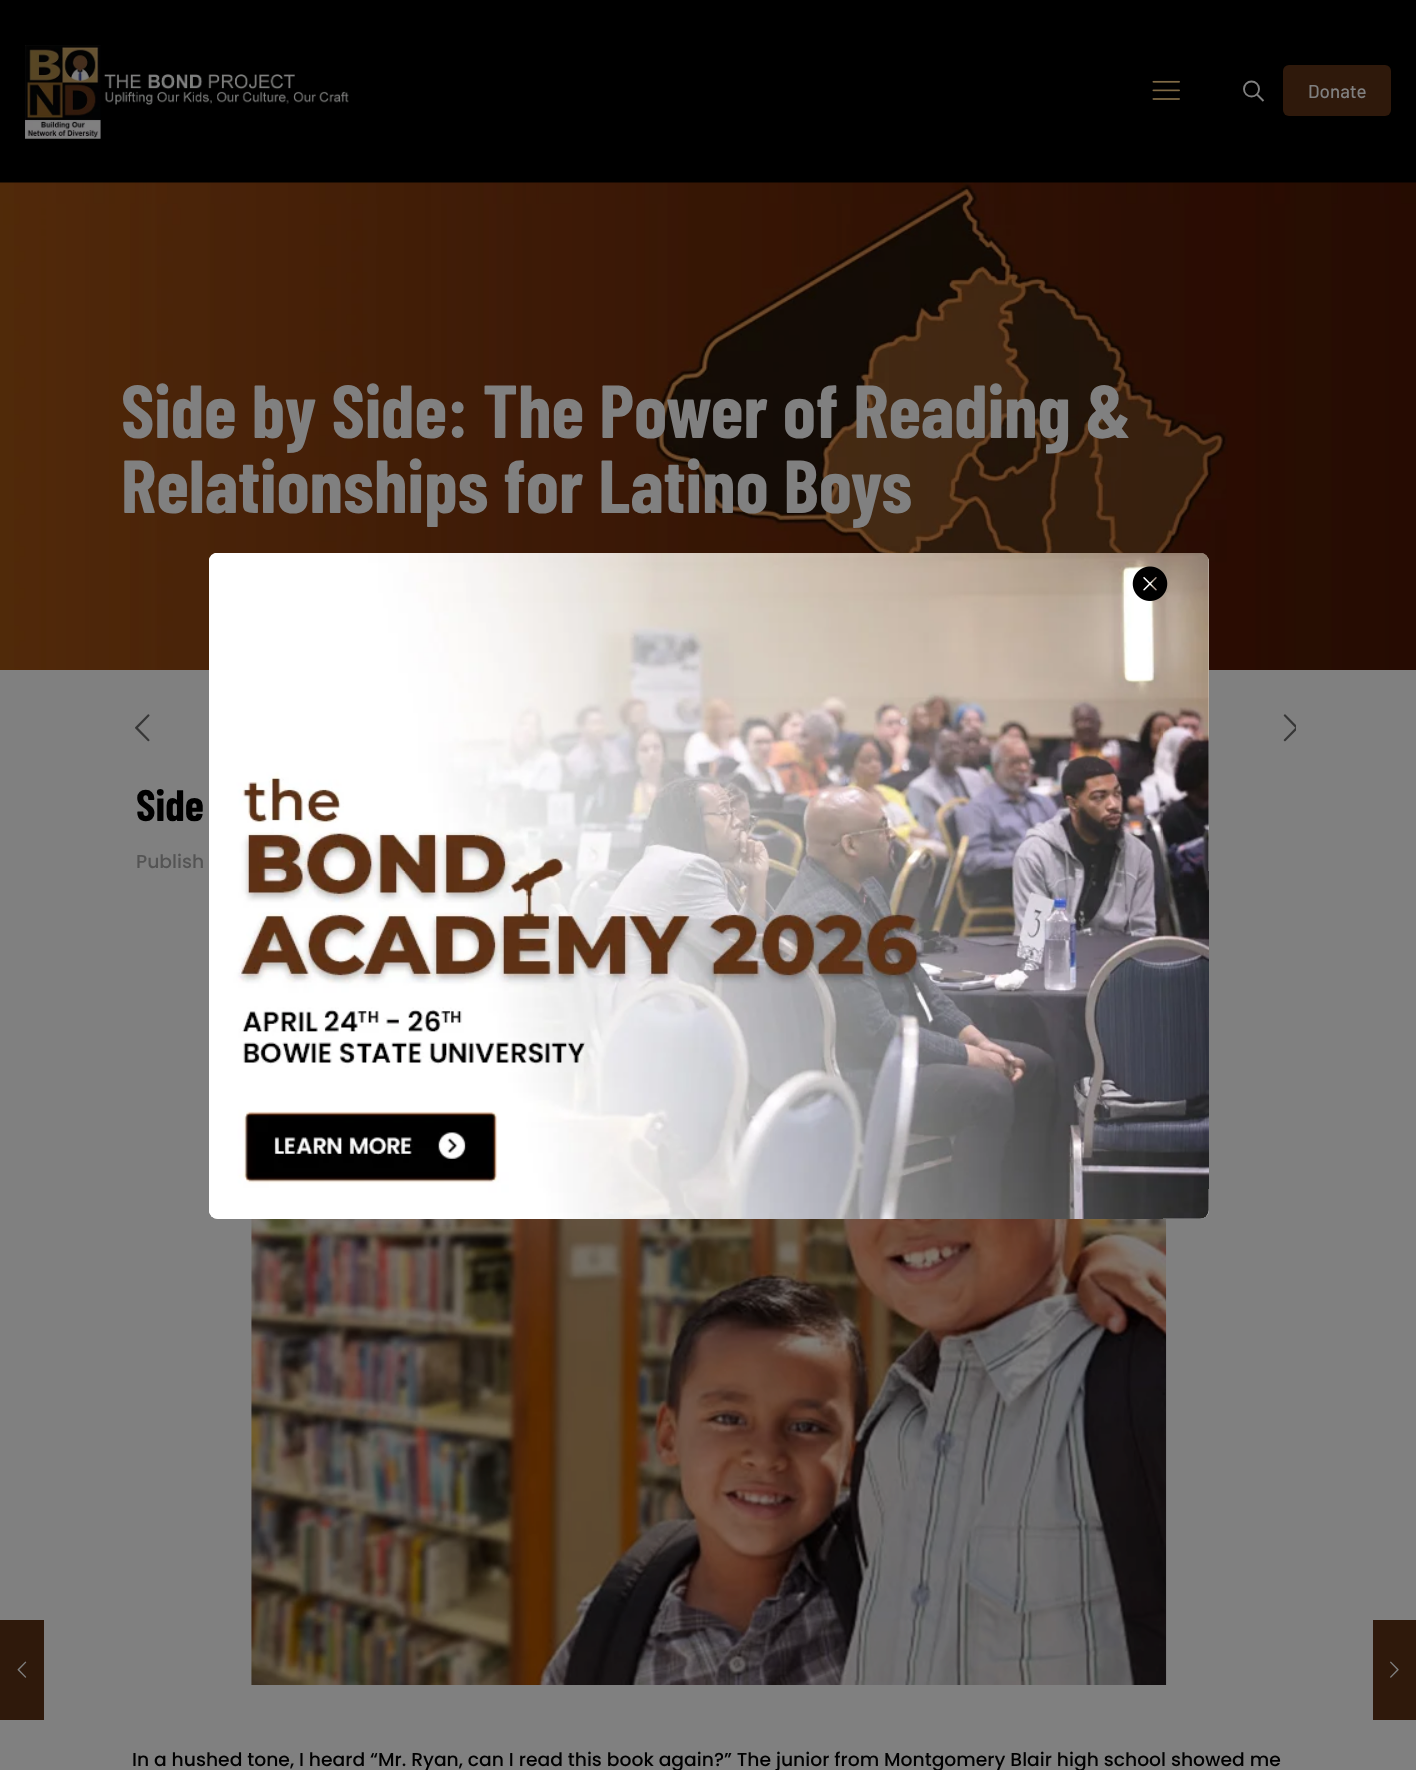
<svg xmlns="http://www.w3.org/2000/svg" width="1416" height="1770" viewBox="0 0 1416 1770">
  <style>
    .t1 { font: 500 18.75px Barlow; fill: #808080; }
    .t2 { font: bold 75px Barlow Condensed; fill: #808080; }
    .t3 { font: bold 44px Barlow Condensed; fill: #000; }
    .t4 { font: 500 18.75px Poppins; fill: #545454; }
    .t5 { font: 500 18.75px Poppins; fill: #000; }
  </style>
  <rect width="100%" height="100%" fill="#808080"/>
  <rect x="0" y="0" width="1416" height="183" fill="#000"/>
  <image x="25" y="45" width="324" height="94" href="images/1.png"/>
  <image x="1152" y="80" width="28" height="20" href="images/2.png"/>
  <circle cx="1251.5" cy="89" r="7.5" fill="none" stroke="#808080" stroke-width="1.9"/>
  <path d="M1257 94.5L1263.5 101" fill="none" stroke="#808080" stroke-width="1.9"/>
  <rect x="1283" y="65" width="108" height="51" rx="6" fill="#2f190b"/>
  <text x="1308" y="98" class="t1">Donate</text>
  <image x="0" y="182" width="1416" height="488" href="images/3.png"/>
  <text x="121" y="438" class="t2">Side by Side: The Power of Reading &amp;</text>
  <text x="121" y="513" class="t2">Relationships for Latino Boys</text>
  <image x="135" y="714" width="15" height="28" href="images/4.png"/>
  <image x="1283" y="714" width="13" height="28" href="images/5.png"/>
  <text x="136" y="821" class="t3">Side</text>
  <text x="136" y="868" class="t4">Publish</text>
  <image x="251" y="1219" width="916" height="466" href="images/6.png"/>
  <text x="132" y="1766" class="t5">In a hushed tone, I heard “Mr. Ryan, can I read this book again?” The junior from Montgomery Blair high school showed me</text>
  <rect x="209" y="553" width="1000" height="666" rx="9" fill="#fff"/>
  <image x="209" y="553" width="1000" height="666" href="images/7.png"/>
  <image x="1132" y="566" width="36" height="35" href="images/8.png"/>
  <rect x="0" y="1620" width="44" height="100" fill="#2f190b"/>
  <image x="17" y="1661" width="10" height="17" href="images/9.png"/>
  <rect x="1373" y="1620" width="43" height="100" fill="#2f190b"/>
  <image x="1390" y="1661" width="9" height="17" href="images/10.png"/>
</svg>
